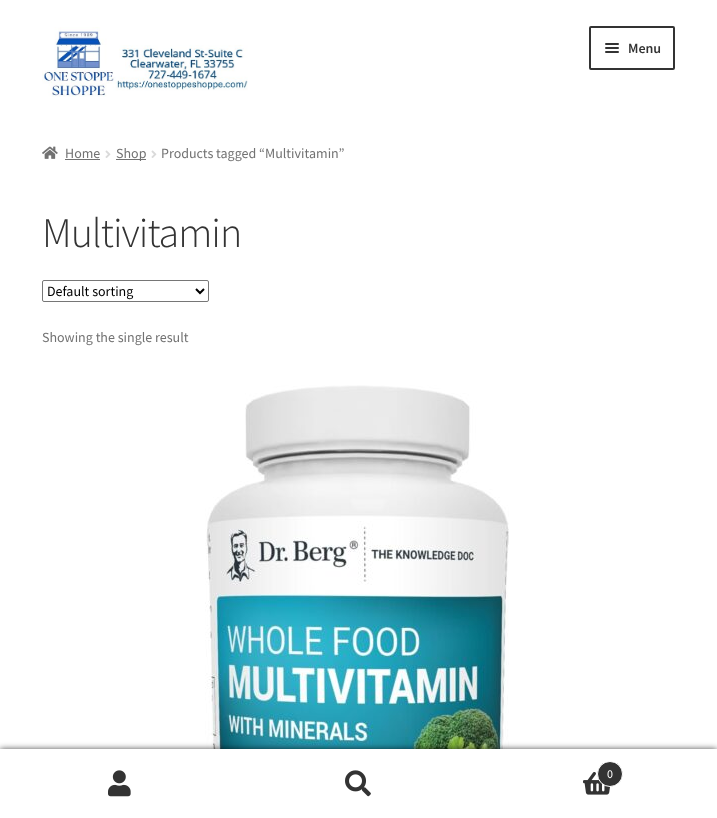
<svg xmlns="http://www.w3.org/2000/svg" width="717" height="818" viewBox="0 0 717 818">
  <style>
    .t1 { font: 600 14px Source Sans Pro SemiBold; fill: #333; }
    .t2 { font: 14px Source Sans Pro; fill: #727272; }
    .t3 { font: 300 42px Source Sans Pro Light; letter-spacing: -1px; fill: #333; }
    .t4 { font: 14px Source Sans Pro; fill: #000; }
    .t5 { font: 12px Source Sans Pro; fill: #fff; }
  </style>
  <rect width="100%" height="100%" fill="#fff"/>
  <image x="42" y="27" width="206" height="70" href="images/1.png"/>
  <rect x="590" y="27" width="84" height="42" rx="1" fill="none" stroke="#333" stroke-width="2"/>
  <rect x="605" y="43" width="14" height="2" rx="1" fill="#333"/>
  <rect x="605" y="47" width="14" height="2" rx="1" fill="#333"/>
  <text x="628" y="53" class="t1">Menu</text>
  <rect x="605" y="51" width="14" height="2" rx="1" fill="#333"/>
  <image x="42" y="146" width="16" height="13" href="images/2.png"/>
  <text x="65" y="158" class="t2">Home</text>
  <rect x="65" y="159" width="35" height="1" fill="#727272"/>
  <image x="105" y="150" width="6" height="8" href="images/3.png"/>
  <rect x="116" y="159" width="30" height="1" fill="#727272"/>
  <text x="116" y="158" class="t2">Shop</text>
  <image x="151" y="150" width="6" height="8" href="images/3.png"/>
  <text x="161" y="158" class="t2">Products tagged “Multivitamin”</text>
  <text x="42" y="247" class="t3">Multivitamin</text>
  <rect x="42.5" y="280.5" width="166" height="21" rx="1.5" fill="none" stroke="#767676"/>
  <path d="M196 289L200 293L204 289" fill="none" stroke="#000" stroke-width="2"/>
  <text x="47" y="296" class="t4">Default sorting</text>
  <text x="42" y="342" class="t2">Showing the single result</text>
  <image x="205" y="385" width="304" height="364" href="images/4.png"/>
  <rect x="0" y="749" width="717" height="69" fill="#000000b3" filter="blur(3px)"/>
  <rect x="0" y="749" width="717" height="1" fill="#fff"/>
  <rect x="0" y="750" width="717" height="68" fill="#fff"/>
  <image x="108" y="770" width="23" height="27" href="images/5.png"/>
  <image x="345" y="770" width="26" height="27" href="images/6.png"/>
  <image x="583" y="772" width="28" height="23" href="images/7.png"/>
  <circle cx="610" cy="774" r="12.5" fill="#333" stroke="#fff"/>
  <text x="607" y="778" class="t5">0</text>
</svg>
